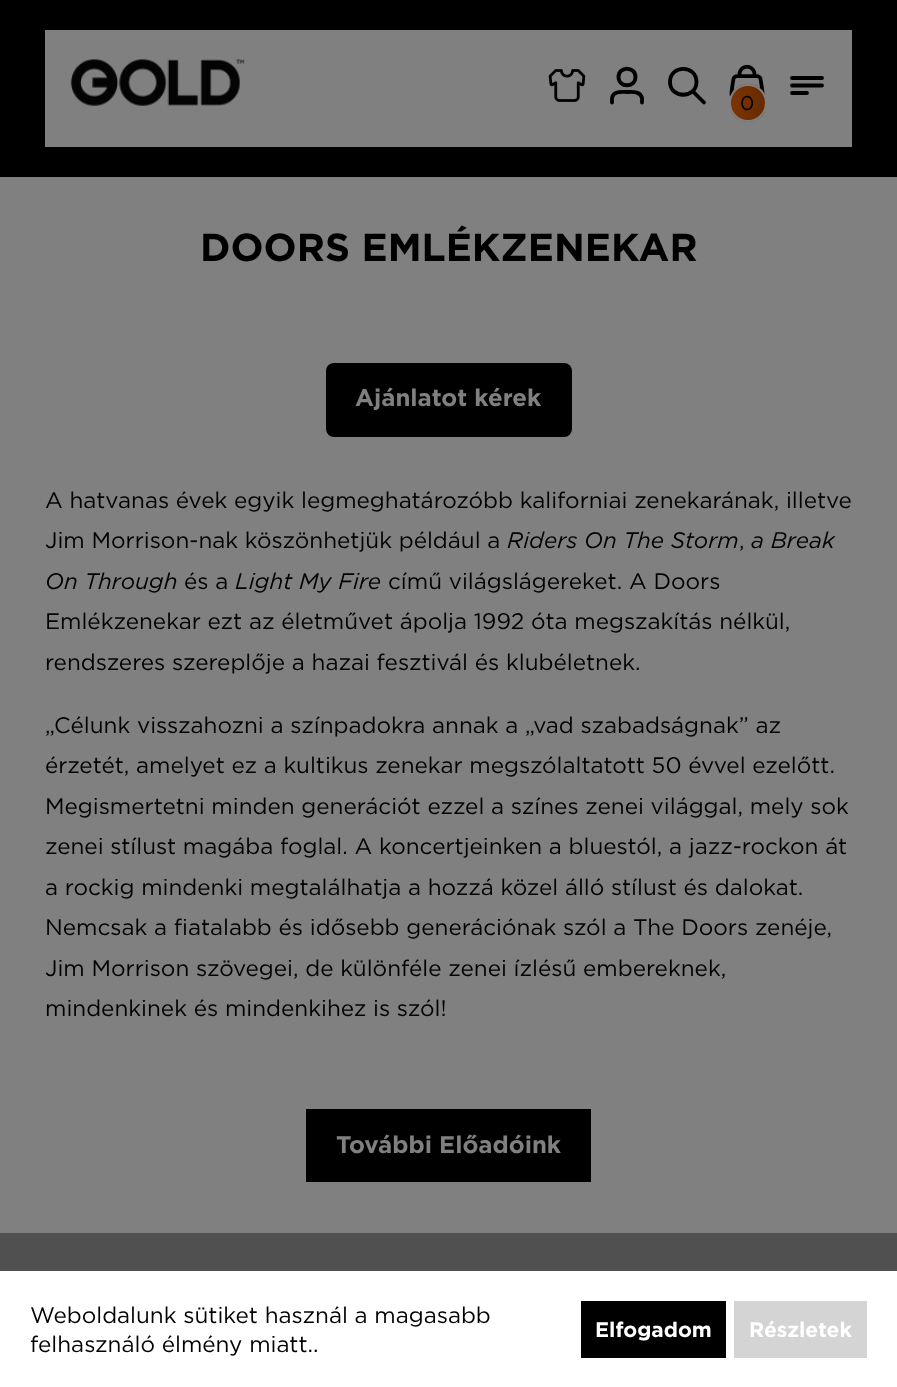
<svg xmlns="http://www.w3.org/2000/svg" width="897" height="1387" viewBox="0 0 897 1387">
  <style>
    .t1 { font: 20px Gotham; fill: #000; }
    .t2 { font: bold 39px Gotham; fill: #000; }
    .t3 { font: bold 24px Gotham; fill: #808080; }
    .t4 { font: 22.5px Gotham; fill: #000; }
    .t5 { font: italic 22.5px Gotham; fill: #000; }
    .t6 { font: bold 21px Gotham; fill: #fff; }
  </style>
  <defs>
    <clipPath id="clip1"><rect x="729" y="84" width="38" height="38" rx="19"/></clipPath>
    <linearGradient id="g1" gradientUnits="userSpaceOnUse" x1="730" y1="103" x2="764" y2="103"><stop offset="0" stop-color="#7e3402"/><stop offset="1" stop-color="#672a01"/></linearGradient>
  </defs>
  <rect width="100%" height="100%" fill="#808080"/>
  <rect x="0" y="0" width="897" height="177" fill="#000"/>
  <rect x="45" y="30" width="807" height="117" fill="#808080"/>
  <image x="70" y="59" width="175" height="47" href="images/1.png"/>
  <image x="548" y="69" width="38" height="33" href="images/2.png"/>
  <path d="M642 102.5V98C640.5 91 632.5 92 627 92C621.5 92 613.5 90.5 612 98V102.5M635.5 77C635.5 88 618.5 88 618.5 77C618.5 66 635.5 66 635.5 77Z" fill="none" stroke="#000" stroke-width="3.8" stroke-linecap="round" stroke-linejoin="round"/>
  <path d="M692.5 91L704 102.5M696.5 82C696.5 99 670 99 670 82C670 64.5 696.5 64.5 696.5 82Z" fill="none" stroke="#000" stroke-width="3.8" stroke-linecap="round" stroke-linejoin="round"/>
  <path d="M792 85.5H822M792 78H822M792 93H807" fill="none" stroke="#000" stroke-width="3.8" stroke-linecap="round" stroke-linejoin="round"/>
  <image x="729" y="64" width="36" height="33" href="images/3.png"/>
  <g clip-path="url(#clip1)">
    <rect x="731" y="84" width="34" height="38" fill="url(#g1)"/>
  </g>
  <circle cx="748" cy="103" r="18" fill="none" stroke="#808080" stroke-width="2"/>
  <text x="740" y="110" class="t1">0</text>
  <text x="200" y="261" class="t2">DOORS EMLÉKZENEKAR</text>
  <rect x="326" y="363" width="246" height="74" rx="8" fill="#000"/>
  <text x="355" y="406" class="t3">Ajánlatot kérek</text>
  <text x="45" y="508" class="t4">A hatvanas évek egyik legmeghatározóbb kaliforniai zenekarának, illetve</text>
  <text x="45" y="548" class="t4">Jim Morrison-nak köszönhetjük például a</text>
  <text x="507" y="548" class="t5">Riders On The Storm</text>
  <text x="739" y="548" class="t4">,</text>
  <text x="751" y="548" class="t5">a Break</text>
  <text x="45" y="589" class="t5">On Through</text>
  <text x="184" y="589" class="t4">és a</text>
  <text x="235" y="589" class="t5">Light My Fire</text>
  <text x="388" y="589" class="t4">című világslágereket. A Doors</text>
  <text x="45" y="629" class="t4">Emlékzenekar ezt az életművet ápolja 1992 óta megszakítás nélkül,</text>
  <text x="45" y="670" class="t4">rendszeres szereplője a hazai fesztivál és klubéletnek.</text>
  <text x="45" y="733" class="t4">„Célunk visszahozni a színpadokra annak a „vad szabadságnak” az</text>
  <text x="45" y="773" class="t4">érzetét, amelyet ez a kultikus zenekar megszólaltatott 50 évvel ezelőtt.</text>
  <text x="45" y="814" class="t4">Megismertetni minden generációt ezzel a színes zenei világgal, mely sok</text>
  <text x="45" y="854" class="t4">zenei stílust magába foglal. A koncertjeinken a bluestól, a jazz-rockon át</text>
  <text x="45" y="895" class="t4">a rockig mindenki megtalálhatja a hozzá közel álló stílust és dalokat.</text>
  <text x="45" y="935" class="t4">Nemcsak a fiatalabb és idősebb generációnak szól a The Doors zenéje,</text>
  <text x="45" y="976" class="t4">Jim Morrison szövegei, de különféle zenei ízlésű embereknek,</text>
  <text x="45" y="1016" class="t4">mindenkinek és mindenkihez is szól!</text>
  <rect x="306" y="1109" width="285" height="73" fill="#000"/>
  <text x="336" y="1153" class="t3">További Előadóink</text>
  <rect x="0" y="1233" width="897" height="38" fill="#505050"/>
  <rect x="0" y="1271" width="897" height="116" fill="#fff"/>
  <text x="30" y="1323" class="t4">Weboldalunk sütiket használ a magasabb</text>
  <text x="30" y="1352" class="t4">felhasználó élmény miatt..</text>
  <rect x="581" y="1301" width="145" height="57" fill="#000"/>
  <text x="595" y="1337" class="t6">Elfogadom</text>
  <rect x="734" y="1301" width="133" height="57" fill="#d4d4d4"/>
  <text x="749" y="1337" class="t6">Részletek</text>
</svg>
